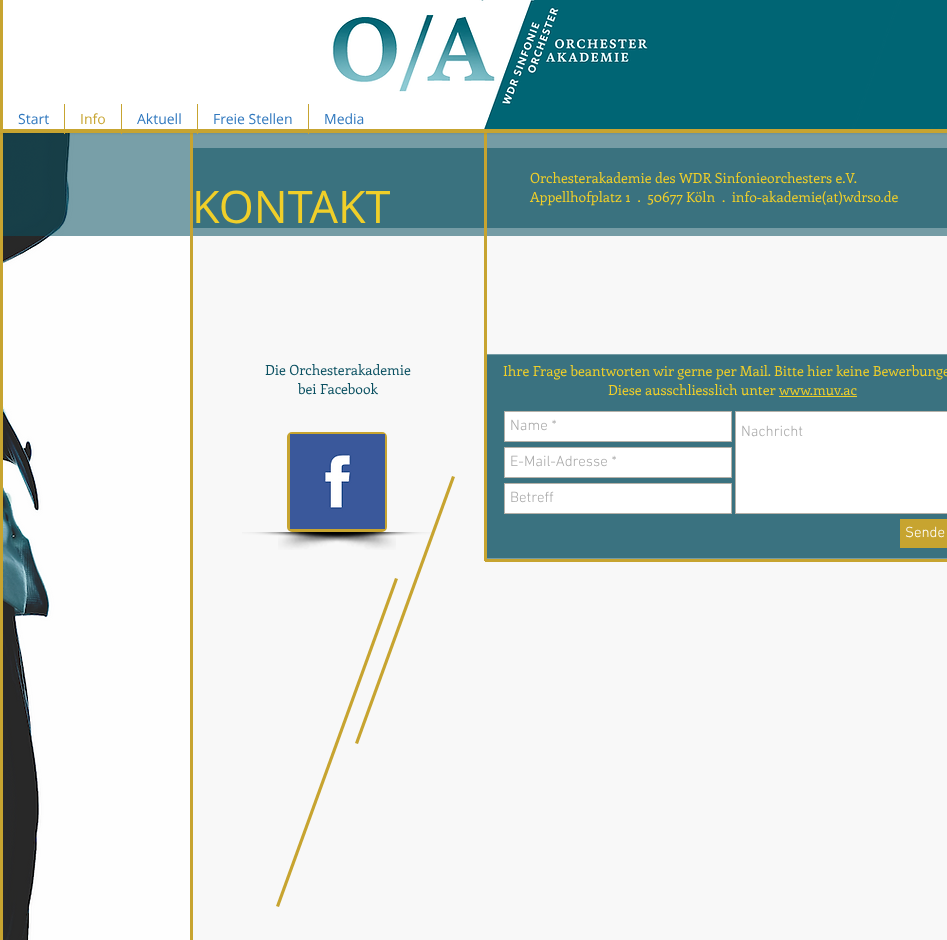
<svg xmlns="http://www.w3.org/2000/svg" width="947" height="940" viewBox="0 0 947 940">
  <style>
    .t1 { font: 14px Open Sans; fill: #3078be; }
    .t2 { font: 14px Open Sans; fill: #c7a430; }
    .t3 { font: 45px Open Sans; fill: #f0cf29; }
    .t4 { font: 14px Enriqueta; fill: #f0cf29; }
    .t5 { font: 14px Enriqueta; fill: #0a5061; }
    .t6 { font: 300 15px 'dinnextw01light'; fill: #a9a9a9; }
    .t7 { font: 300 15px 'dinnextw01light'; fill: #fff; }
  </style>
  <rect width="100%" height="100%" fill="#f8f8f8"/>
  <rect x="0" y="130" width="3" height="810" fill="#c7a430"/>
  <image x="3" y="133" width="187" height="807" href="images/2.png"/>
  <rect x="193" y="148" width="754" height="80" fill="#759ca5"/>
  <rect x="3" y="133" width="944" height="103" fill="#0a50618c"/>
  <rect x="190" y="130" width="3" height="810" fill="#c7a430"/>
  <rect x="484" y="133" width="3" height="428" fill="#c7a430"/>
  <rect x="0" y="0" width="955" height="130" fill="#000000b3" filter="blur(2.5px)"/>
  <rect x="3" y="0" width="328" height="129" fill="#fff"/>
  <rect x="64" y="104" width="1" height="30" fill="#c7a430"/>
  <rect x="121" y="104" width="1" height="30" fill="#c7a430"/>
  <rect x="197" y="104" width="1" height="30" fill="#c7a430"/>
  <rect x="308" y="104" width="1" height="30" fill="#c7a430"/>
  <rect x="0" y="129" width="947" height="4" fill="#c7a430"/>
  <rect x="0" y="0" width="3" height="130" fill="#c7a430"/>
  <text x="18" y="124" class="t1">Start</text>
  <text x="80" y="124" class="t2">Info</text>
  <text x="137" y="124" class="t1">Aktuell</text>
  <text x="213" y="124" class="t1">Freie Stellen</text>
  <image x="331" y="0" width="616" height="129" href="images/1.png"/>
  <text x="324" y="124" class="t1">Media</text>
  <text x="192" y="223" class="t3">KONTAKT</text>
  <text x="530" y="183" class="t4">Orchesterakademie des WDR Sinfonieorchesters e.V.</text>
  <text x="530" y="202" class="t4" xml:space="preserve">Appellhofplatz 1  .  50677 Köln  .  info-akademie(at)wdrso.de</text>
  <text x="265" y="375" class="t5">Die Orchesterakademie</text>
  <text x="298" y="394" class="t5">bei Facebook</text>
  <rect x="487" y="354" width="460" height="1" fill="#759ca5"/>
  <rect x="487" y="355" width="460" height="203" fill="#3a7280"/>
  <text x="503" y="376" class="t4">Ihre Frage beantworten wir gerne per Mail. Bitte hier keine Bewerbunge</text>
  <text x="608" y="395" class="t4">Diese ausschliesslich unter</text>
  <text x="779" y="395" class="t4">www.muv.ac</text>
  <rect x="779" y="396" width="78" height="1" fill="#f0cf29"/>
  <rect x="288.5" y="433.5" width="97" height="97" rx="3.5" fill="none" stroke="#c7a430" stroke-width="3"/>
  <image x="290" y="434" width="95" height="95" href="images/3.png"/>
  <image x="278" y="532" width="154" height="18" href="images/5.png"/>
  <image x="242" y="532" width="154" height="18" href="images/4.png"/>
  <rect x="504.5" y="411.5" width="227" height="30" fill="#fff" stroke="#b5b1a9"/>
  <text x="510" y="430" class="t6">Name *</text>
  <rect x="735.5" y="411.5" width="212" height="102" fill="#fff" stroke="#b5b1a9"/>
  <text x="741" y="436" class="t6">Nachricht</text>
  <rect x="504.5" y="447.5" width="227" height="30" fill="#fff" stroke="#b5b1a9"/>
  <text x="510" y="466" class="t6">E-Mail-Adresse *</text>
  <rect x="504.5" y="483.5" width="227" height="30" fill="#fff" stroke="#b5b1a9"/>
  <text x="510" y="502" class="t6">Betreff</text>
  <rect x="900" y="519" width="47" height="29" fill="#c7a430"/>
  <text x="905" y="537" class="t7">Sende</text>
  <path d="M355 743L452 476L455 477L358 744Z" fill="#c7a430"/>
  <rect x="485" y="559" width="462" height="3" fill="#c7a430"/>
  <path d="M276 906L395 578L398 579L279 907Z" fill="#c7a430"/>
  <rect x="487" y="558" width="460" height="1" fill="#759ca5"/>
</svg>
